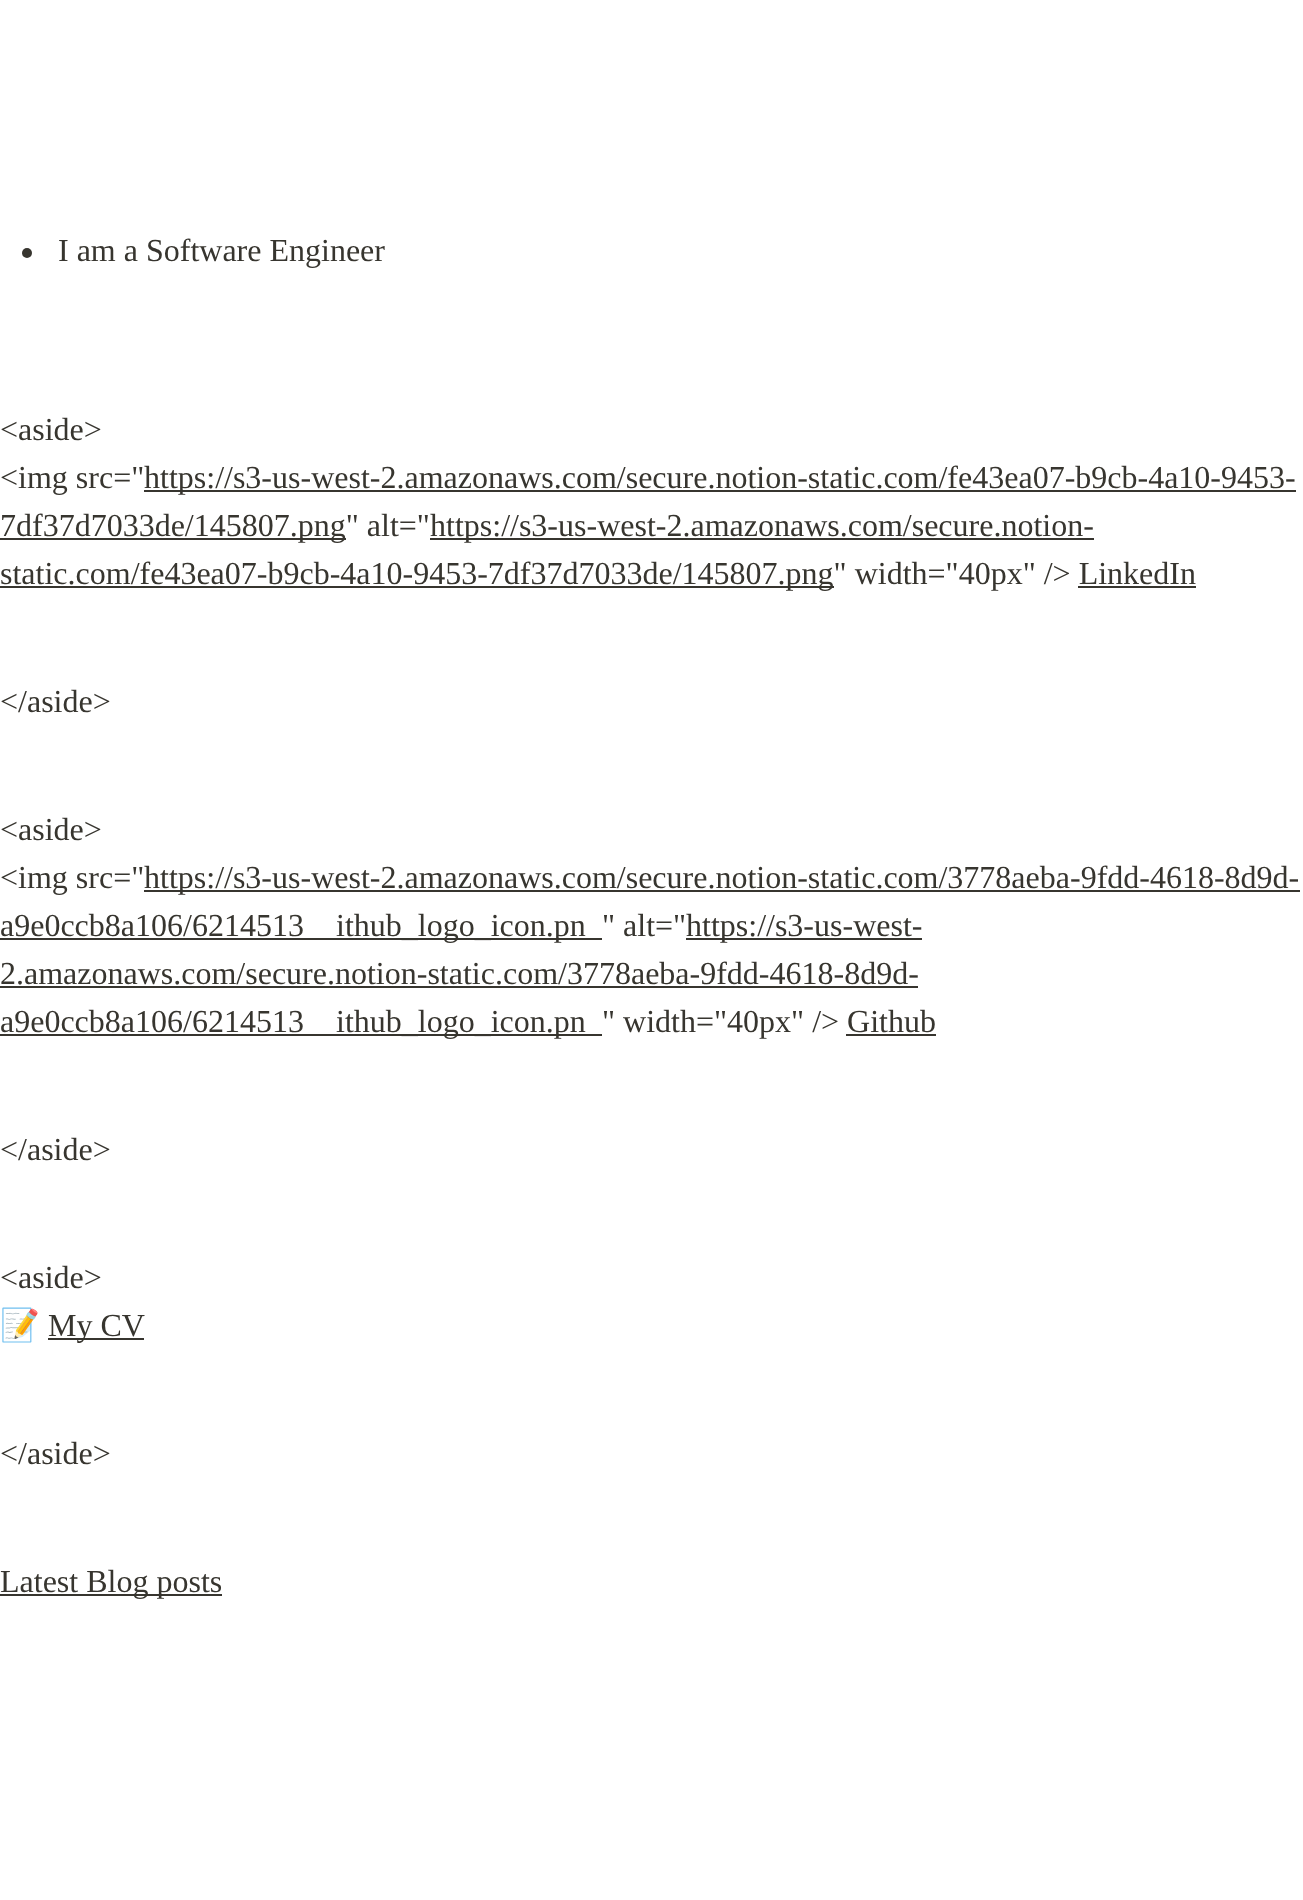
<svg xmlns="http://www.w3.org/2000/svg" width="1303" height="1900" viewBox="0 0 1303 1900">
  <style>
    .t1 { font: 32px Liberation Serif; fill: #37352f; }
    .t2 { font: 32px Noto Color Emoji; fill: #37352f; }
  </style>
  <rect width="100%" height="100%" fill="#fff"/>
  <circle cx="27" cy="253" r="5" fill="#37352f"/>
  <text x="58" y="261" class="t1">I am a Software Engineer</text>
  <text x="0" y="440" class="t1">&lt;aside&gt;</text>
  <text x="0" y="488" class="t1">&lt;img src="</text>
  <rect x="144" y="490" width="1152" height="2" fill="#37352f"/>
  <text x="144" y="488" class="t1">https://s3-us-west-2.amazonaws.com/secure.notion-static.com/fe43ea07-b9cb-4a10-9453-</text>
  <rect x="0" y="538" width="346" height="2" fill="#37352f"/>
  <text x="0" y="536" class="t1">7df37d7033de/145807.png" alt="</text>
  <rect x="430" y="538" width="664" height="2" fill="#37352f"/>
  <text x="430" y="536" class="t1">https://s3-us-west-2.amazonaws.com/secure.notion-</text>
  <rect x="0" y="586" width="834" height="2" fill="#37352f"/>
  <text x="0" y="584" class="t1">static.com/fe43ea07-b9cb-4a10-9453-7df37d7033de/145807.png" width="40px" /&gt; LinkedIn</text>
  <rect x="1078" y="586" width="118" height="2" fill="#37352f"/>
  <text x="0" y="712" class="t1">&lt;/aside&gt;</text>
  <text x="0" y="840" class="t1">&lt;aside&gt;</text>
  <text x="0" y="888" class="t1">&lt;img src="</text>
  <rect x="144" y="890" width="1156" height="2" fill="#37352f"/>
  <text x="144" y="888" class="t1">https://s3-us-west-2.amazonaws.com/secure.notion-static.com/3778aeba-9fdd-4618-8d9d-</text>
  <text x="0" y="936" class="t1">a9e0ccb8a106/6214513</text>
  <rect x="0" y="938" width="602" height="2" fill="#37352f"/>
  <text x="336" y="936" class="t1">ithub_logo_icon.pn</text>
  <text x="602" y="936" class="t1">" alt="</text>
  <rect x="686" y="938" width="236" height="2" fill="#37352f"/>
  <text x="686" y="936" class="t1">https://s3-us-west-</text>
  <text x="0" y="984" class="t1">2.amazonaws.com/secure.notion-static.com/3778aeba-9fdd-4618-8d9d-</text>
  <rect x="0" y="986" width="918" height="2" fill="#37352f"/>
  <text x="0" y="1032" class="t1">a9e0ccb8a106/6214513</text>
  <rect x="0" y="1034" width="602" height="2" fill="#37352f"/>
  <text x="336" y="1032" class="t1">ithub_logo_icon.pn</text>
  <text x="602" y="1032" class="t1">" width="40px" /&gt; Github</text>
  <rect x="846" y="1034" width="90" height="2" fill="#37352f"/>
  <text x="0" y="1160" class="t1">&lt;/aside&gt;</text>
  <text x="0" y="1288" class="t1">&lt;aside&gt;</text>
  <text x="0" y="1336" class="t2">📝</text>
  <rect x="48" y="1338" width="96" height="2" fill="#37352f"/>
  <text x="48" y="1336" class="t1">My CV</text>
  <text x="0" y="1464" class="t1">&lt;/aside&gt;</text>
  <rect x="0" y="1594" width="222" height="2" fill="#37352f"/>
  <text x="0" y="1592" class="t1">Latest Blog posts</text>
</svg>
